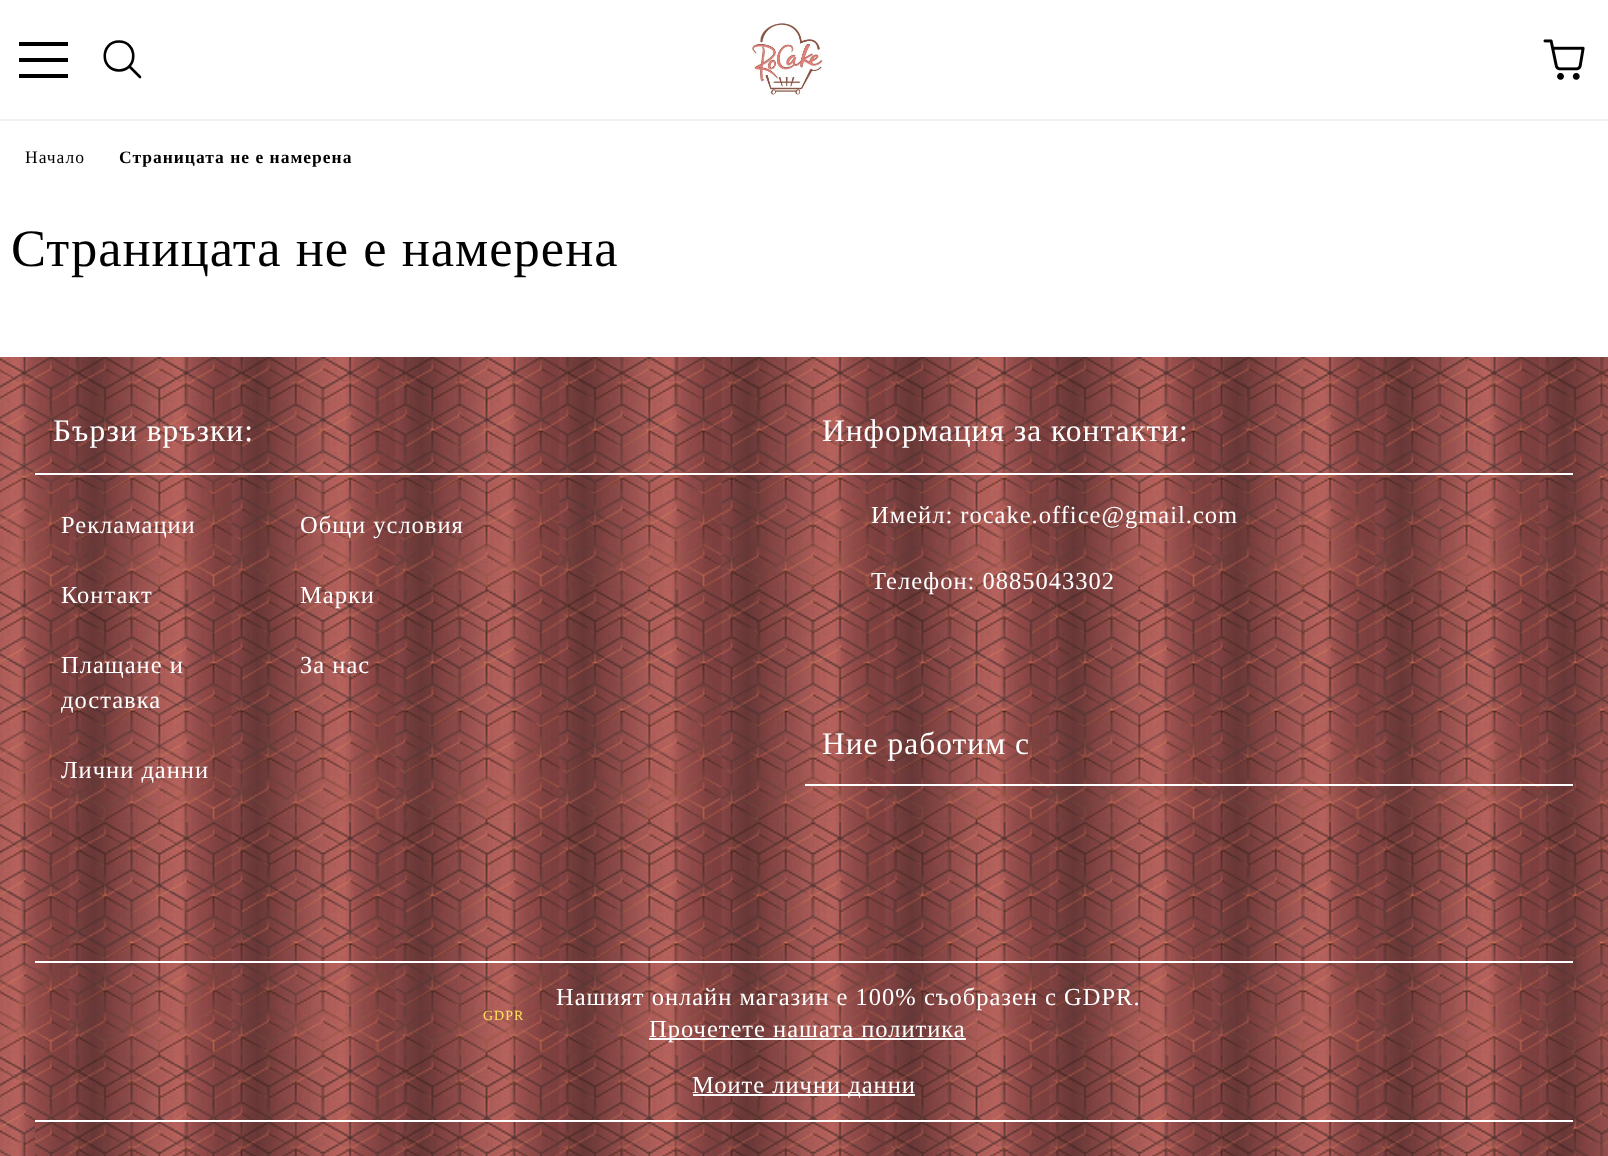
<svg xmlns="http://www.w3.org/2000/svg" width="1608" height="1156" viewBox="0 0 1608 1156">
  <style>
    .t1 { font: 17.5px Liberation Serif; letter-spacing: 1px; fill: #000; }
    .t2 { font: bold 17.5px Liberation Serif; letter-spacing: 1px; fill: #000; }
    .t3 { font: 52.5px Liberation Serif; letter-spacing: 1px; fill: #000; }
    .t4 { font: 31.5px Liberation Serif; letter-spacing: 1px; fill: #fff; }
    .t5 { font: 24.5px Liberation Serif; letter-spacing: 1px; fill: #fff; }
    .t6 { font: 14px Liberation Serif; letter-spacing: 1px; fill: #ffe15a; }
  </style>
  <rect width="100%" height="100%" fill="#fff"/>
  <rect x="0" y="119" width="1608" height="2" fill="#f1f1f1"/>
  <rect x="19" y="42" width="49" height="4" fill="#000"/>
  <rect x="19" y="58" width="49" height="4" fill="#000"/>
  <rect x="19" y="74" width="49" height="4" fill="#000"/>
  <path d="M119 41.5C100 41.5 100 70.5 119 70.5C138 70.5 138 41.5 119 41.5Z" fill="none" stroke="#000" stroke-width="2.6"/>
  <path d="M130 67L140 77" fill="none" stroke="#000" stroke-width="2.6" stroke-linecap="round"/>
  <image x="752" y="23" width="72" height="73" href="images/1.png"/>
  <image x="1543" y="39" width="42" height="41" href="images/2.png"/>
  <text x="25" y="163" class="t1">Начало</text>
  <text x="119" y="163" class="t2">Страницата не е намерена</text>
  <text x="11" y="266" class="t3">Страницата не е намерена</text>
  <image x="0" y="357" width="1608" height="799" href="images/3.png"/>
  <rect x="35" y="473" width="1538" height="2" fill="#fff"/>
  <text x="53" y="441" class="t4">Бързи връзки:</text>
  <text x="61" y="533" class="t5">Рекламации</text>
  <text x="61" y="603" class="t5">Контакт</text>
  <text x="61" y="673" class="t5">Плащане и</text>
  <text x="61" y="708" class="t5">доставка</text>
  <text x="61" y="778" class="t5">Лични данни</text>
  <text x="300" y="533" class="t5">Общи условия</text>
  <text x="300" y="603" class="t5">Марки</text>
  <text x="300" y="673" class="t5">За нас</text>
  <text x="822" y="441" class="t4">Информация за контакти:</text>
  <text x="871" y="523" class="t5">Имейл: rocake.office@gmail.com</text>
  <text x="871" y="589" class="t5">Телефон: 0885043302</text>
  <rect x="805" y="784" width="768" height="2" fill="#fff"/>
  <text x="822" y="754" class="t4">Ние работим с</text>
  <rect x="35" y="961" width="1538" height="2" fill="#fff"/>
  <text x="556" y="1005" class="t5">Нашият онлайн магазин е 100% съобразен с GDPR.</text>
  <text x="483" y="1020" class="t6">GDPR</text>
  <rect x="649" y="1038" width="317" height="2" fill="#fff"/>
  <text x="649" y="1037" class="t5">Прочетете нашата политика</text>
  <rect x="693" y="1094" width="222" height="2" fill="#fff"/>
  <text x="692" y="1093" class="t5">Моите лични данни</text>
  <image x="35" y="1120" width="1539" height="36" href="images/4.png"/>
  <rect x="35" y="1120" width="1538" height="2" fill="#fff"/>
</svg>
